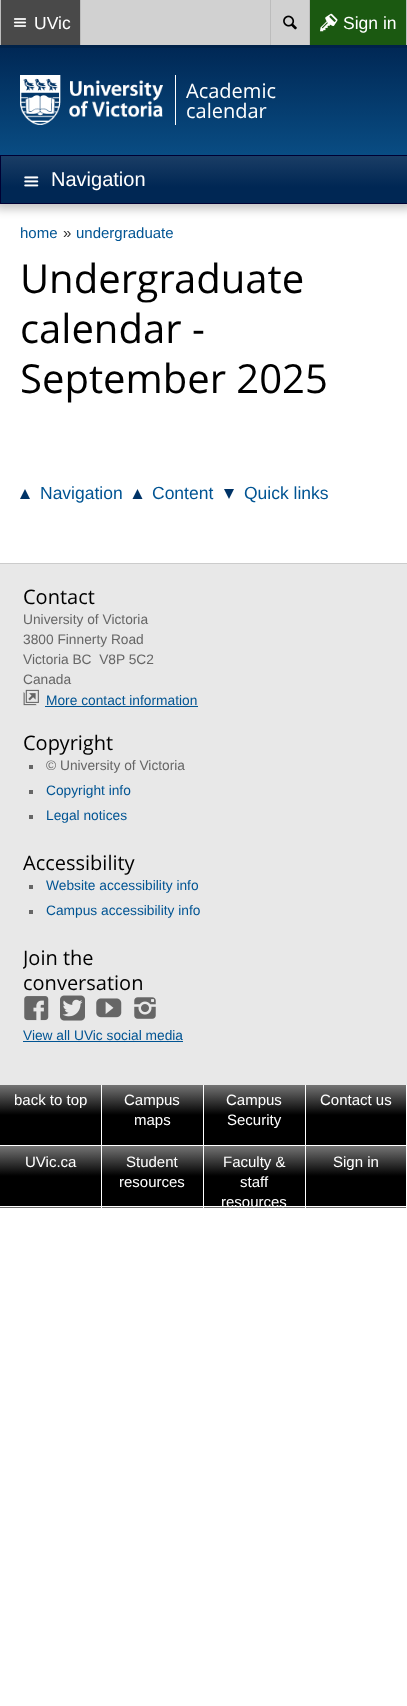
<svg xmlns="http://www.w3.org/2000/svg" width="407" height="1706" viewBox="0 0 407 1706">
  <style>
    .t1 { font: 17.5px Liberation Sans; fill: #fff; }
    .t2 { font: 20px Open Sans; fill: #fff; }
    .t3 { font: 20px Liberation Sans; fill: #fff; }
    .t4 { font: 15px Liberation Sans; fill: #005493; }
    .t5 { font: 15px Liberation Sans; fill: #333; }
    .t6 { font: 40px Open Sans; fill: #000; }
    .t7 { font: 17.5px Liberation Sans; fill: #005493; }
    .t8 { font: 20px Open Sans; fill: #000; }
    .t9 { font: 13.75px Liberation Sans; fill: #666; }
    .t10 { font: 13.75px Liberation Sans; fill: #005493; }
    .t11 { font: 15px Liberation Sans; fill: #fff; }
  </style>
  <defs>
    <linearGradient id="g1" gradientUnits="userSpaceOnUse" x1="204" y1="45" x2="204" y2="204"><stop offset="0" stop-color="#002754"/><stop offset="1" stop-color="#0d5d98"/></linearGradient>
    <linearGradient id="g2" gradientUnits="userSpaceOnUse" x1="204" y1="156" x2="204" y2="203"><stop offset="0" stop-color="#1a3d65"/><stop offset="0.66" stop-color="#002754"/></linearGradient>
    <clipPath id="clip1"><rect x="23" y="945" width="178" height="100"/></clipPath>
    <linearGradient id="g3" gradientUnits="userSpaceOnUse" x1="51" y1="1085" x2="51" y2="1145"><stop offset="0" stop-color="#747474"/><stop offset="0.5" stop-color="#000"/></linearGradient>
    <linearGradient id="g4" gradientUnits="userSpaceOnUse" x1="153" y1="1085" x2="153" y2="1145"><stop offset="0" stop-color="#747474"/><stop offset="0.5" stop-color="#000"/></linearGradient>
    <linearGradient id="g5" gradientUnits="userSpaceOnUse" x1="254" y1="1085" x2="254" y2="1145"><stop offset="0" stop-color="#747474"/><stop offset="0.5" stop-color="#000"/></linearGradient>
    <linearGradient id="g6" gradientUnits="userSpaceOnUse" x1="356" y1="1085" x2="356" y2="1145"><stop offset="0" stop-color="#747474"/><stop offset="0.5" stop-color="#000"/></linearGradient>
    <linearGradient id="g7" gradientUnits="userSpaceOnUse" x1="51" y1="1146" x2="51" y2="1206"><stop offset="0" stop-color="#747474"/><stop offset="0.5" stop-color="#000"/></linearGradient>
    <linearGradient id="g8" gradientUnits="userSpaceOnUse" x1="51" y1="1206" x2="51" y2="1266"><stop offset="0" stop-color="#747474"/><stop offset="0.5" stop-color="#000"/></linearGradient>
    <linearGradient id="g9" gradientUnits="userSpaceOnUse" x1="153" y1="1146" x2="153" y2="1206"><stop offset="0" stop-color="#747474"/><stop offset="0.5" stop-color="#000"/></linearGradient>
    <linearGradient id="g10" gradientUnits="userSpaceOnUse" x1="153" y1="1206" x2="153" y2="1266"><stop offset="0" stop-color="#747474"/><stop offset="0.5" stop-color="#000"/></linearGradient>
    <linearGradient id="g11" gradientUnits="userSpaceOnUse" x1="254" y1="1146" x2="254" y2="1206"><stop offset="0" stop-color="#747474"/><stop offset="0.5" stop-color="#000"/></linearGradient>
    <linearGradient id="g12" gradientUnits="userSpaceOnUse" x1="254" y1="1206" x2="254" y2="1266"><stop offset="0" stop-color="#747474"/><stop offset="0.5" stop-color="#000"/></linearGradient>
    <linearGradient id="g13" gradientUnits="userSpaceOnUse" x1="356" y1="1146" x2="356" y2="1206"><stop offset="0" stop-color="#747474"/><stop offset="0.5" stop-color="#000"/></linearGradient>
    <linearGradient id="g14" gradientUnits="userSpaceOnUse" x1="356" y1="1206" x2="356" y2="1266"><stop offset="0" stop-color="#747474"/><stop offset="0.5" stop-color="#000"/></linearGradient>
  </defs>
  <rect width="100%" height="100%" fill="#fff"/>
  <rect x="-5" y="40" width="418" height="169" fill="#0000003d" filter="blur(5px)"/>
  <rect x="0" y="45" width="407" height="110" fill="url(#g1)"/>
  <rect x="-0.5" y="-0.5" width="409" height="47" fill="none" stroke="#0000001f" stroke-width="3"/>
  <rect x="81" y="0" width="228" height="45" fill="#d1d1d1"/>
  <rect x="1" y="0" width="79" height="45" fill="#494949"/>
  <rect x="80" y="0" width="1" height="45" fill="#bcbcbc"/>
  <rect x="0" y="0" width="1" height="45" fill="#bcbcbc"/>
  <image x="13" y="18" width="14" height="9" href="images/1.png"/>
  <text x="34" y="29" class="t1">UVic</text>
  <rect x="270" y="0" width="1" height="45" fill="#bcbcbc"/>
  <image x="283" y="15" width="14" height="15" href="images/2.png"/>
  <rect x="310" y="0" width="96" height="45" fill="#1b5911"/>
  <rect x="406" y="0" width="1" height="45" fill="#bcbcbc"/>
  <rect x="309" y="0" width="1" height="45" fill="#bcbcbc"/>
  <image x="320" y="13" width="18" height="19" href="images/3.png"/>
  <text x="343" y="29" class="t1">Sign in</text>
  <image x="20" y="75" width="143" height="50" href="images/4.png"/>
  <rect x="175" y="75" width="1" height="50" fill="#fff"/>
  <text x="186" y="98" class="t2">Academic</text>
  <text x="186" y="118" class="t2">calendar</text>
  <rect x="1" y="156" width="406" height="47" fill="url(#g2)"/>
  <rect x="0.5" y="155.5" width="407" height="48" fill="none" stroke="#003"/>
  <image x="24" y="176" width="15" height="11" href="images/5.png"/>
  <text x="51" y="186" class="t3">Navigation</text>
  <text x="20" y="238" class="t4">home</text>
  <text x="63" y="238" class="t5">»</text>
  <text x="76" y="238" class="t4">undergraduate</text>
  <text x="20" y="293" class="t6">Undergraduate</text>
  <text x="20" y="343" class="t6">calendar -</text>
  <text x="20" y="393" class="t6">September 2025</text>
  <path d="M30 499H20L25 489Z" fill="#036"/>
  <text x="40" y="499" class="t7">Navigation</text>
  <path d="M142.5 499H132.5L137.5 489Z" fill="#036"/>
  <text x="152" y="499" class="t7">Content</text>
  <path d="M224 489H234L229 499Z" fill="#036"/>
  <text x="244" y="499" class="t7">Quick links</text>
  <rect x="0" y="564" width="407" height="521" fill="#e8e8e8"/>
  <rect x="0" y="563" width="407" height="1" fill="#ccc"/>
  <text x="23" y="604" class="t8">Contact</text>
  <text x="23" y="624" class="t9">University of Victoria</text>
  <text x="23" y="644" class="t9">3800 Finnerty Road</text>
  <text x="23" y="664" class="t9" xml:space="preserve">Victoria BC  V8P 5C2</text>
  <text x="23" y="684" class="t9">Canada</text>
  <image x="23" y="689" width="16" height="17" href="images/6.png"/>
  <text x="46" y="705" class="t10">More contact information</text>
  <rect x="45" y="706" width="153" height="1" fill="#005493"/>
  <text x="23" y="750" class="t8">Copyright</text>
  <rect x="29" y="765" width="4" height="4" fill="#666"/>
  <text x="46" y="770" class="t9">© University of Victoria</text>
  <rect x="29" y="790" width="4" height="4" fill="#666"/>
  <text x="46" y="795" class="t10">Copyright info</text>
  <rect x="29" y="815" width="4" height="4" fill="#666"/>
  <text x="46" y="820" class="t10">Legal notices</text>
  <text x="23" y="870" class="t8">Accessibility</text>
  <rect x="29" y="885" width="4" height="4" fill="#666"/>
  <text x="46" y="890" class="t10">Website accessibility info</text>
  <rect x="29" y="910" width="4" height="4" fill="#666"/>
  <text x="46" y="915" class="t10">Campus accessibility info</text>
  <g clip-path="url(#clip1)">
    <text x="23" y="965" class="t8">Join the</text>
  </g>
  <text x="23" y="990" class="t8">conversation</text>
  <image x="24" y="996" width="25" height="25" href="images/7.png"/>
  <image x="60" y="995" width="25" height="26" href="images/8.png"/>
  <image x="96" y="998" width="26" height="20" href="images/9.png"/>
  <image x="134" y="997" width="22" height="22" href="images/10.png"/>
  <text x="23" y="1040" class="t10">View all UVic social media</text>
  <rect x="23" y="1041" width="160" height="1" fill="#005493"/>
  <rect x="0" y="1085" width="103" height="60" fill="url(#g3)"/>
  <rect x="101" y="1085" width="1" height="61" fill="#fff"/>
  <text x="14" y="1105" class="t11">back to top</text>
  <rect x="103" y="1085" width="100" height="60" fill="url(#g4)"/>
  <text x="124" y="1105" class="t11">Campus</text>
  <text x="134" y="1125" class="t11">maps</text>
  <rect x="204" y="1085" width="101" height="60" fill="url(#g5)"/>
  <text x="226" y="1105" class="t11">Campus</text>
  <text x="227" y="1125" class="t11">Security</text>
  <rect x="306" y="1085" width="100" height="60" fill="url(#g6)"/>
  <text x="320" y="1105" class="t11">Contact us</text>
  <rect x="0" y="1146" width="103" height="60" fill="url(#g7)"/>
  <rect x="0" y="1207" width="103" height="1" fill="url(#g8)"/>
  <rect x="101" y="1146" width="1" height="62" fill="#fff"/>
  <text x="25" y="1167" class="t11">UVic.ca</text>
  <rect x="103" y="1146" width="100" height="60" fill="url(#g9)"/>
  <rect x="103" y="1207" width="101" height="1" fill="url(#g10)"/>
  <rect x="203" y="1207" width="1" height="1" fill="#fff"/>
  <text x="126" y="1167" class="t11">Student</text>
  <text x="119" y="1187" class="t11">resources</text>
  <rect x="204" y="1146" width="101" height="60" fill="url(#g11)"/>
  <rect x="204" y="1207" width="102" height="1" fill="url(#g12)"/>
  <rect x="305" y="1207" width="1" height="1" fill="#fff"/>
  <text x="223" y="1167" class="t11">Faculty &amp;</text>
  <text x="240" y="1187" class="t11">staff</text>
  <text x="221" y="1207" class="t11">resources</text>
  <rect x="306" y="1146" width="100" height="60" fill="url(#g13)"/>
  <rect x="306" y="1207" width="101" height="1" fill="url(#g14)"/>
  <rect x="406" y="1207" width="1" height="1" fill="#fff"/>
  <text x="333" y="1167" class="t11">Sign in</text>
</svg>
